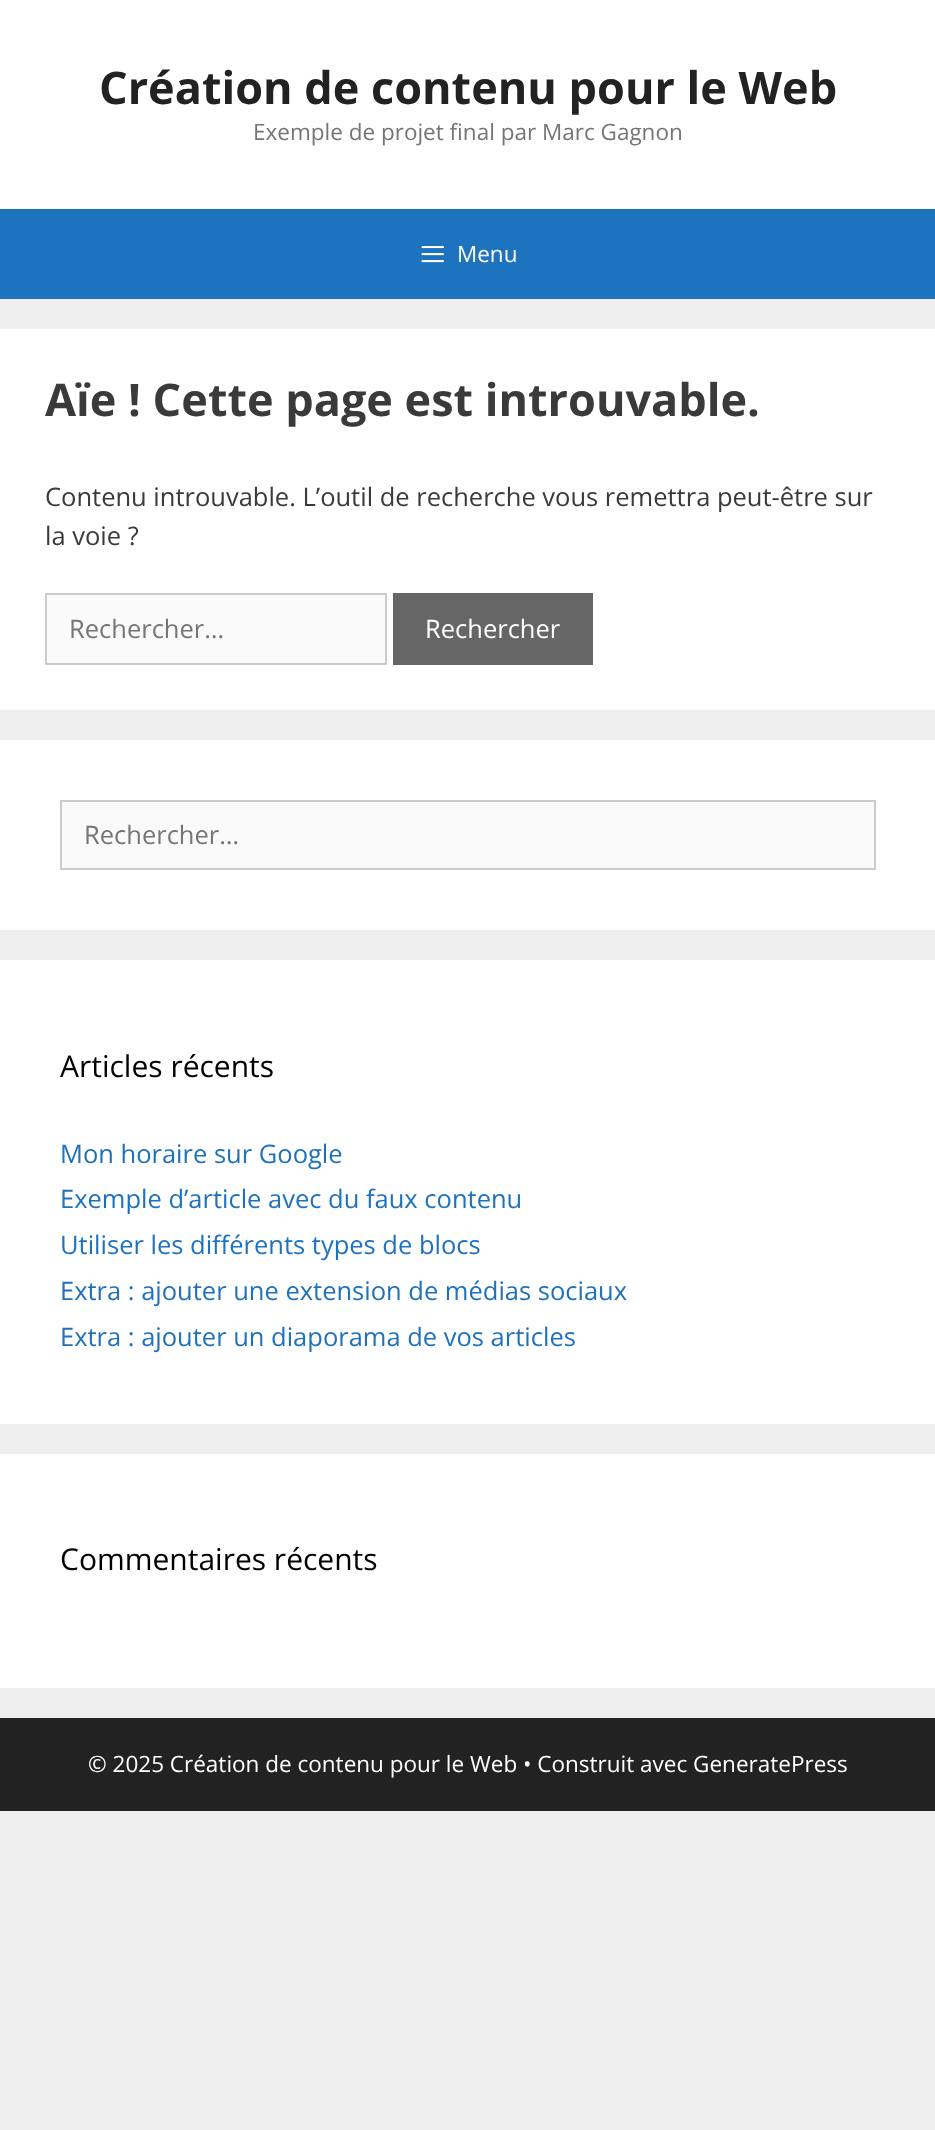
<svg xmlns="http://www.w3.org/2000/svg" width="935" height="2130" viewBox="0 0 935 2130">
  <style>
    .t1 { font: bold 45px Open Sans; fill: #222; }
    .t2 { font: 22.5px Open Sans; fill: #757575; }
    .t3 { font: 22.5px Open Sans; fill: #fff; }
    .t4 { font: bold 45px Open Sans; fill: #3a3a3a; }
    .t5 { font: 25.5px Open Sans; fill: #3a3a3a; }
    .t6 { font: 25.5px Open Sans; fill: #757575; }
    .t7 { font: 25.5px Open Sans; fill: #fff; }
    .t8 { font: 30px Open Sans; fill: #000; }
    .t9 { font: 25.5px Open Sans; fill: #1e72bd; }
  </style>
  <rect width="100%" height="100%" fill="#efefef"/>
  <rect x="0" y="0" width="935" height="209" fill="#fff"/>
  <text x="99" y="104" class="t1">Création de contenu pour le Web</text>
  <text x="253" y="140" class="t2">Exemple de projet final par Marc Gagnon</text>
  <rect x="0" y="209" width="935" height="90" fill="#1e73be"/>
  <image x="421" y="246" width="23" height="17" href="images/1.png"/>
  <text x="457" y="262" class="t3">Menu</text>
  <rect x="0" y="329" width="935" height="381" fill="#fff"/>
  <text x="45" y="416" class="t4">Aïe ! Cette page est introuvable.</text>
  <text x="45" y="506" class="t5">Contenu introuvable. L’outil de recherche vous remettra peut-être sur</text>
  <text x="45" y="545" class="t5">la voie ?</text>
  <rect x="46" y="594" width="340" height="70" fill="#fafafa" stroke="#ccc" stroke-width="2"/>
  <text x="69" y="638" class="t6">Rechercher…</text>
  <rect x="393" y="593" width="200" height="72" fill="#666"/>
  <text x="425" y="638" class="t7">Rechercher</text>
  <rect x="0" y="740" width="935" height="190" fill="#fff"/>
  <rect x="61" y="801" width="814" height="68" fill="#fafafa" stroke="#ccc" stroke-width="2"/>
  <text x="84" y="844" class="t6">Rechercher…</text>
  <rect x="0" y="960" width="935" height="464" fill="#fff"/>
  <text x="60" y="1077" class="t8">Articles récents</text>
  <text x="60" y="1163" class="t9">Mon horaire sur Google</text>
  <text x="60" y="1208" class="t9">Exemple d’article avec du faux contenu</text>
  <text x="60" y="1254" class="t9">Utiliser les différents types de blocs</text>
  <text x="60" y="1300" class="t9">Extra : ajouter une extension de médias sociaux</text>
  <text x="60" y="1346" class="t9">Extra : ajouter un diaporama de vos articles</text>
  <rect x="0" y="1454" width="935" height="234" fill="#fff"/>
  <text x="60" y="1570" class="t8">Commentaires récents</text>
  <rect x="0" y="1718" width="935" height="93" fill="#222"/>
  <text x="88" y="1772" class="t3">© 2025 Création de contenu pour le Web • Construit avec GeneratePress</text>
</svg>
